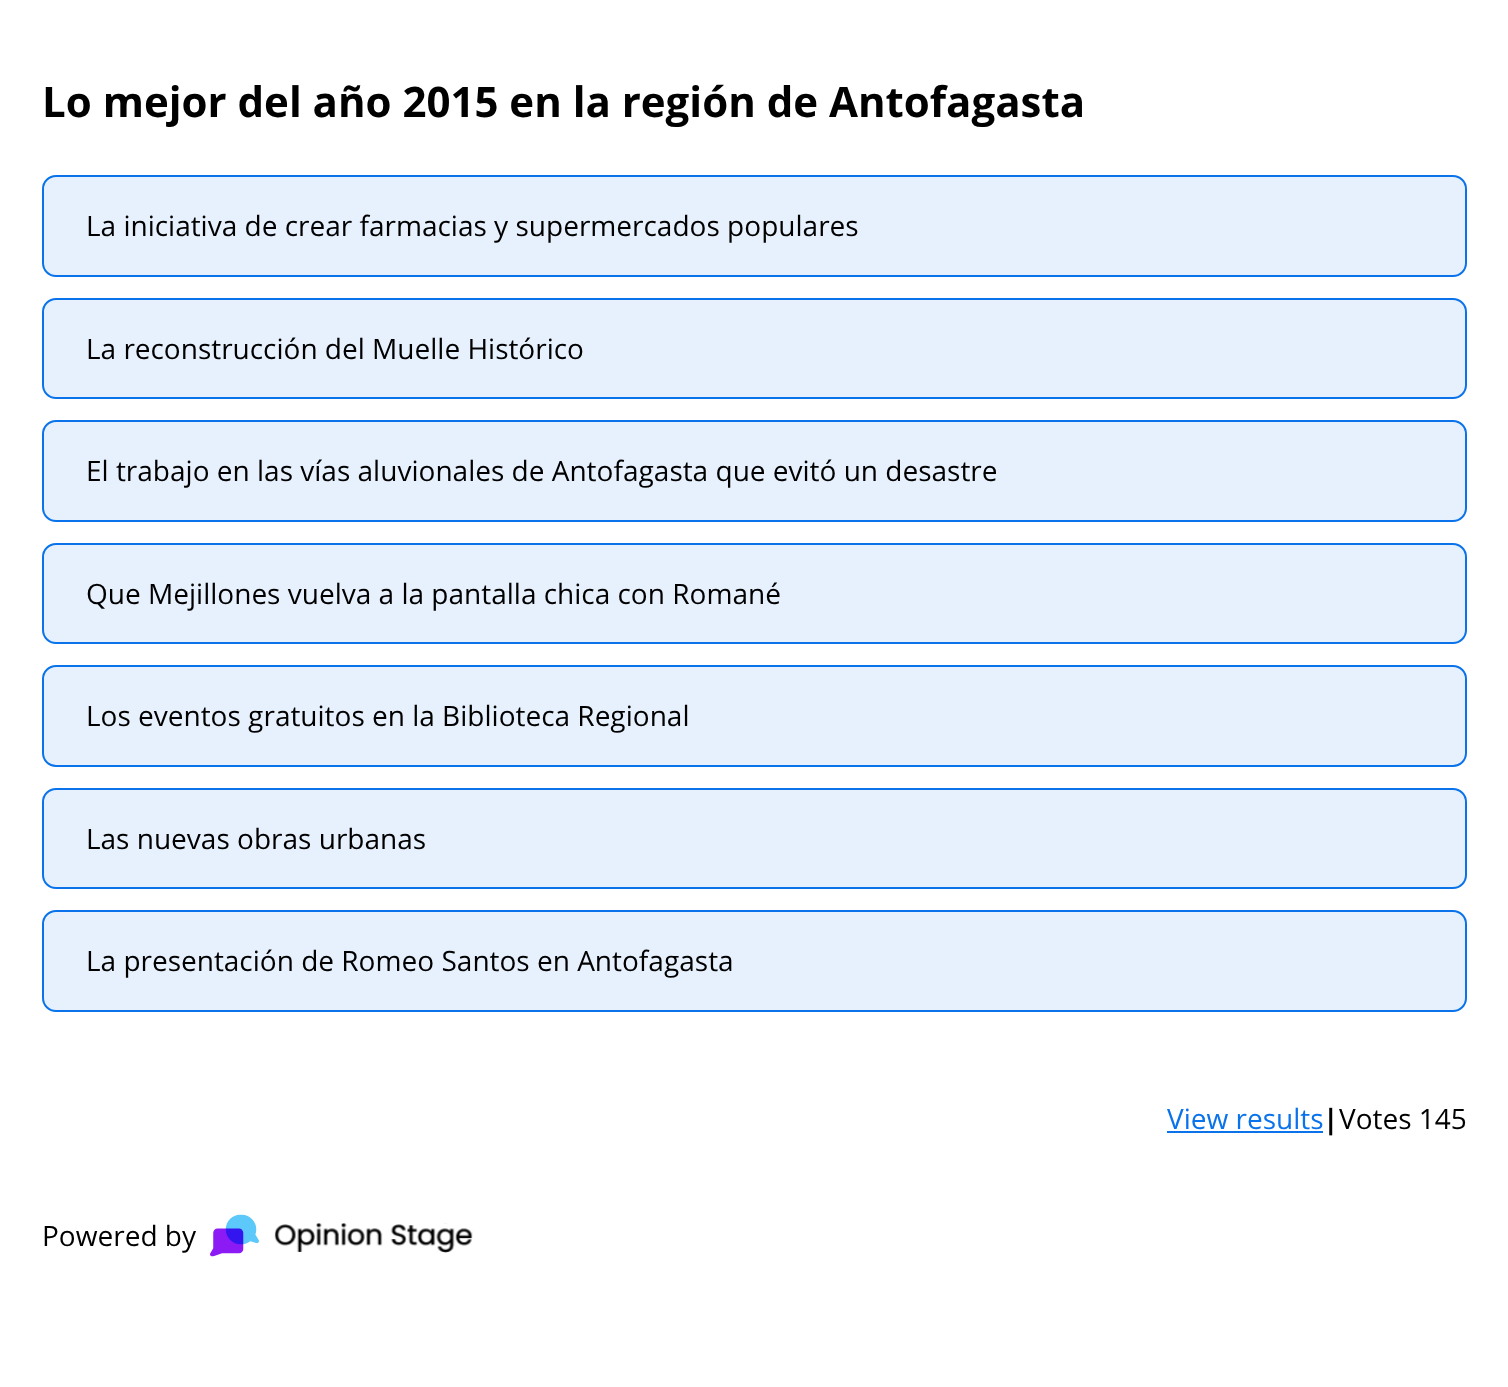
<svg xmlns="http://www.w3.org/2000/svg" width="1508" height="1387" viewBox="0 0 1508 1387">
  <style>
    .t1 { font: bold 42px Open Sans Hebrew; fill: #000; }
    .t2 { font: 28px Open Sans Hebrew; fill: #000; }
    .t3 { font: 28px Open Sans Hebrew; fill: #0a73eb; }
    .t4 { font: bold 28px Open Sans Hebrew; fill: #000; }
  </style>
  <rect width="100%" height="100%" fill="#fff"/>
  <text x="42" y="117" class="t1">Lo mejor del año 2015 en la región de Antofagasta</text>
  <rect x="43" y="176" width="1423" height="100" rx="13" fill="#e7f1fd" stroke="#0a73eb" stroke-width="2"/>
  <text x="86" y="236" class="t2">La iniciativa de crear farmacias y supermercados populares</text>
  <rect x="43" y="299" width="1423" height="99" rx="13" fill="#e7f1fd" stroke="#0a73eb" stroke-width="2"/>
  <text x="86" y="359" class="t2">La reconstrucción del Muelle Histórico</text>
  <rect x="43" y="421" width="1423" height="100" rx="13" fill="#e7f1fd" stroke="#0a73eb" stroke-width="2"/>
  <text x="86" y="481" class="t2">El trabajo en las vías aluvionales de Antofagasta que evitó un desastre</text>
  <rect x="43" y="544" width="1423" height="99" rx="13" fill="#e7f1fd" stroke="#0a73eb" stroke-width="2"/>
  <text x="86" y="604" class="t2">Que Mejillones vuelva a la pantalla chica con Romané</text>
  <rect x="43" y="666" width="1423" height="100" rx="13" fill="#e7f1fd" stroke="#0a73eb" stroke-width="2"/>
  <text x="86" y="726" class="t2">Los eventos gratuitos en la Biblioteca Regional</text>
  <rect x="43" y="789" width="1423" height="99" rx="13" fill="#e7f1fd" stroke="#0a73eb" stroke-width="2"/>
  <text x="86" y="849" class="t2">Las nuevas obras urbanas</text>
  <rect x="43" y="911" width="1423" height="100" rx="13" fill="#e7f1fd" stroke="#0a73eb" stroke-width="2"/>
  <text x="86" y="971" class="t2">La presentación de Romeo Santos en Antofagasta</text>
  <text x="1167" y="1129" class="t3">View results</text>
  <rect x="1167" y="1131" width="156" height="2" fill="#0a73eb"/>
  <text x="1323" y="1129" class="t4">|</text>
  <text x="1339" y="1129" class="t2">Votes 145</text>
  <text x="42" y="1246" class="t2">Powered by</text>
  <image x="210" y="1214" width="263" height="43" href="images/1.png"/>
</svg>
